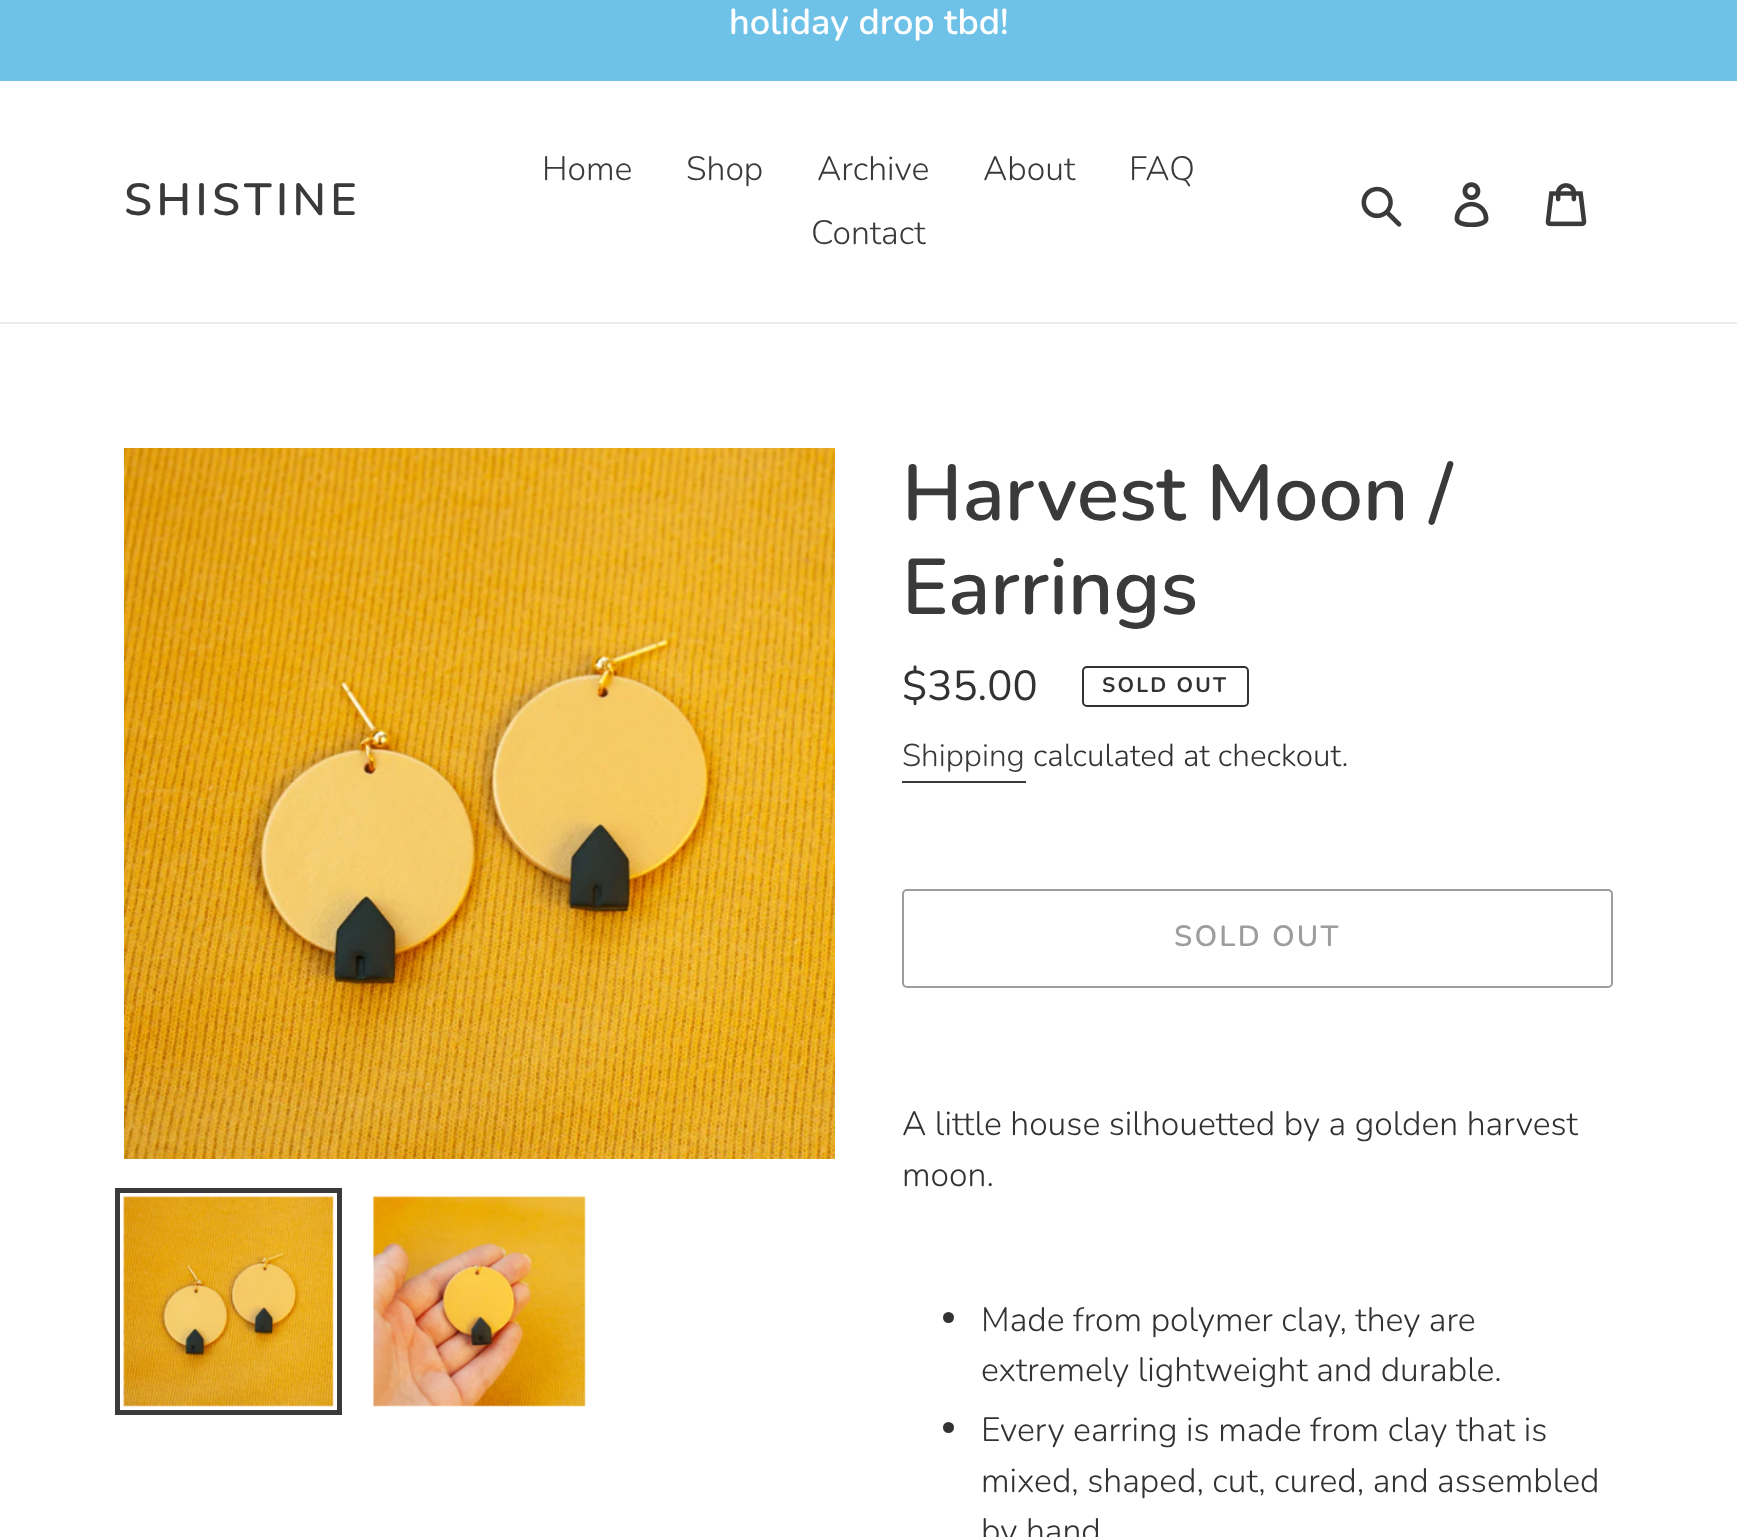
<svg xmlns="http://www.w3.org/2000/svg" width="1737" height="1537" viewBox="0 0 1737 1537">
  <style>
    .t1 { font: 600 36px Nunito; fill: #fff; }
    .t2 { font: 600 45px Nunito; letter-spacing: 4.5px; fill: #3a3a3a; }
    .t3 { font: 300 33.75px Nunito; fill: #3a3a3a; }
    .t4 { font: 600 78.75px Nunito; fill: #3a3a3a; }
    .t5 { font: 42px Nunito; fill: #333232; }
    .t6 { font: bold 21px Nunito; letter-spacing: 2.25px; fill: #333232; }
    .t7 { font: 300 31.5px Nunito; fill: #3a3a3a; }
    .t8 { font: 300 31.5px Nunito; fill: #333232; }
    .t9 { font: 600 29.25px Nunito; letter-spacing: 2.25px; fill: #9d9d9d; }
    .t10 { font: 300 33.75px Nunito; fill: #333232; }
  </style>
  <rect width="100%" height="100%" fill="#fff"/>
  <rect x="0" y="0" width="1737" height="81" fill="#6fc2e7"/>
  <text x="729" y="34" class="t1">holiday drop tbd!</text>
  <rect x="0" y="322" width="1737" height="2" fill="#ebebeb"/>
  <text x="124" y="215" class="t2">SHISTINE</text>
  <text x="542" y="180" class="t3">Home</text>
  <text x="686" y="180" class="t3">Shop</text>
  <text x="817" y="180" class="t3">Archive</text>
  <text x="983" y="180" class="t3">About</text>
  <text x="1129" y="180" class="t3">FAQ</text>
  <text x="811" y="244" class="t3">Contact</text>
  <image x="1361" y="186" width="41" height="41" href="images/1.png"/>
  <image x="1454" y="182" width="35" height="45" href="images/2.png"/>
  <image x="1545" y="183" width="42" height="44" href="images/3.png"/>
  <image x="124" y="448" width="711" height="711" href="images/4.png"/>
  <rect x="117.5" y="1190.5" width="222" height="222" fill="none" stroke="#3a3a3a" stroke-width="5"/>
  <image x="123" y="1196" width="211" height="211" href="images/5.png"/>
  <image x="373" y="1196" width="213" height="211" href="images/6.png"/>
  <text x="902" y="520" class="t4">Harvest Moon /</text>
  <text x="902" y="614" class="t4">Earrings</text>
  <text x="902" y="700" class="t5">$35.00</text>
  <rect x="1083" y="667" width="165" height="39" rx="4" fill="none" stroke="#333232" stroke-width="2"/>
  <text x="1102" y="692" class="t6">SOLD OUT</text>
  <text x="902" y="766" class="t7">Shipping</text>
  <rect x="902" y="781" width="124" height="2" fill="#3a3a3a"/>
  <text x="1033" y="766" class="t8">calculated at checkout.</text>
  <rect x="903" y="890" width="709" height="97" rx="4" fill="none" stroke="#9d9d9d" stroke-width="2"/>
  <text x="1174" y="946" class="t9">SOLD OUT</text>
  <text x="902" y="1135" class="t10">A little house silhouetted by a golden harvest</text>
  <text x="902" y="1186" class="t10">moon.</text>
  <circle cx="948.5" cy="1317.5" r="5.5" fill="#333232"/>
  <text x="981" y="1331" class="t10">Made from polymer clay, they are</text>
  <text x="981" y="1381" class="t10">extremely lightweight and durable.</text>
  <circle cx="948.5" cy="1427.5" r="5.5" fill="#333232"/>
  <text x="981" y="1441" class="t10">Every earring is made from clay that is</text>
  <text x="981" y="1492" class="t10">mixed, shaped, cut, cured, and assembled</text>
  <text x="981" y="1542" class="t10">by hand</text>
</svg>
